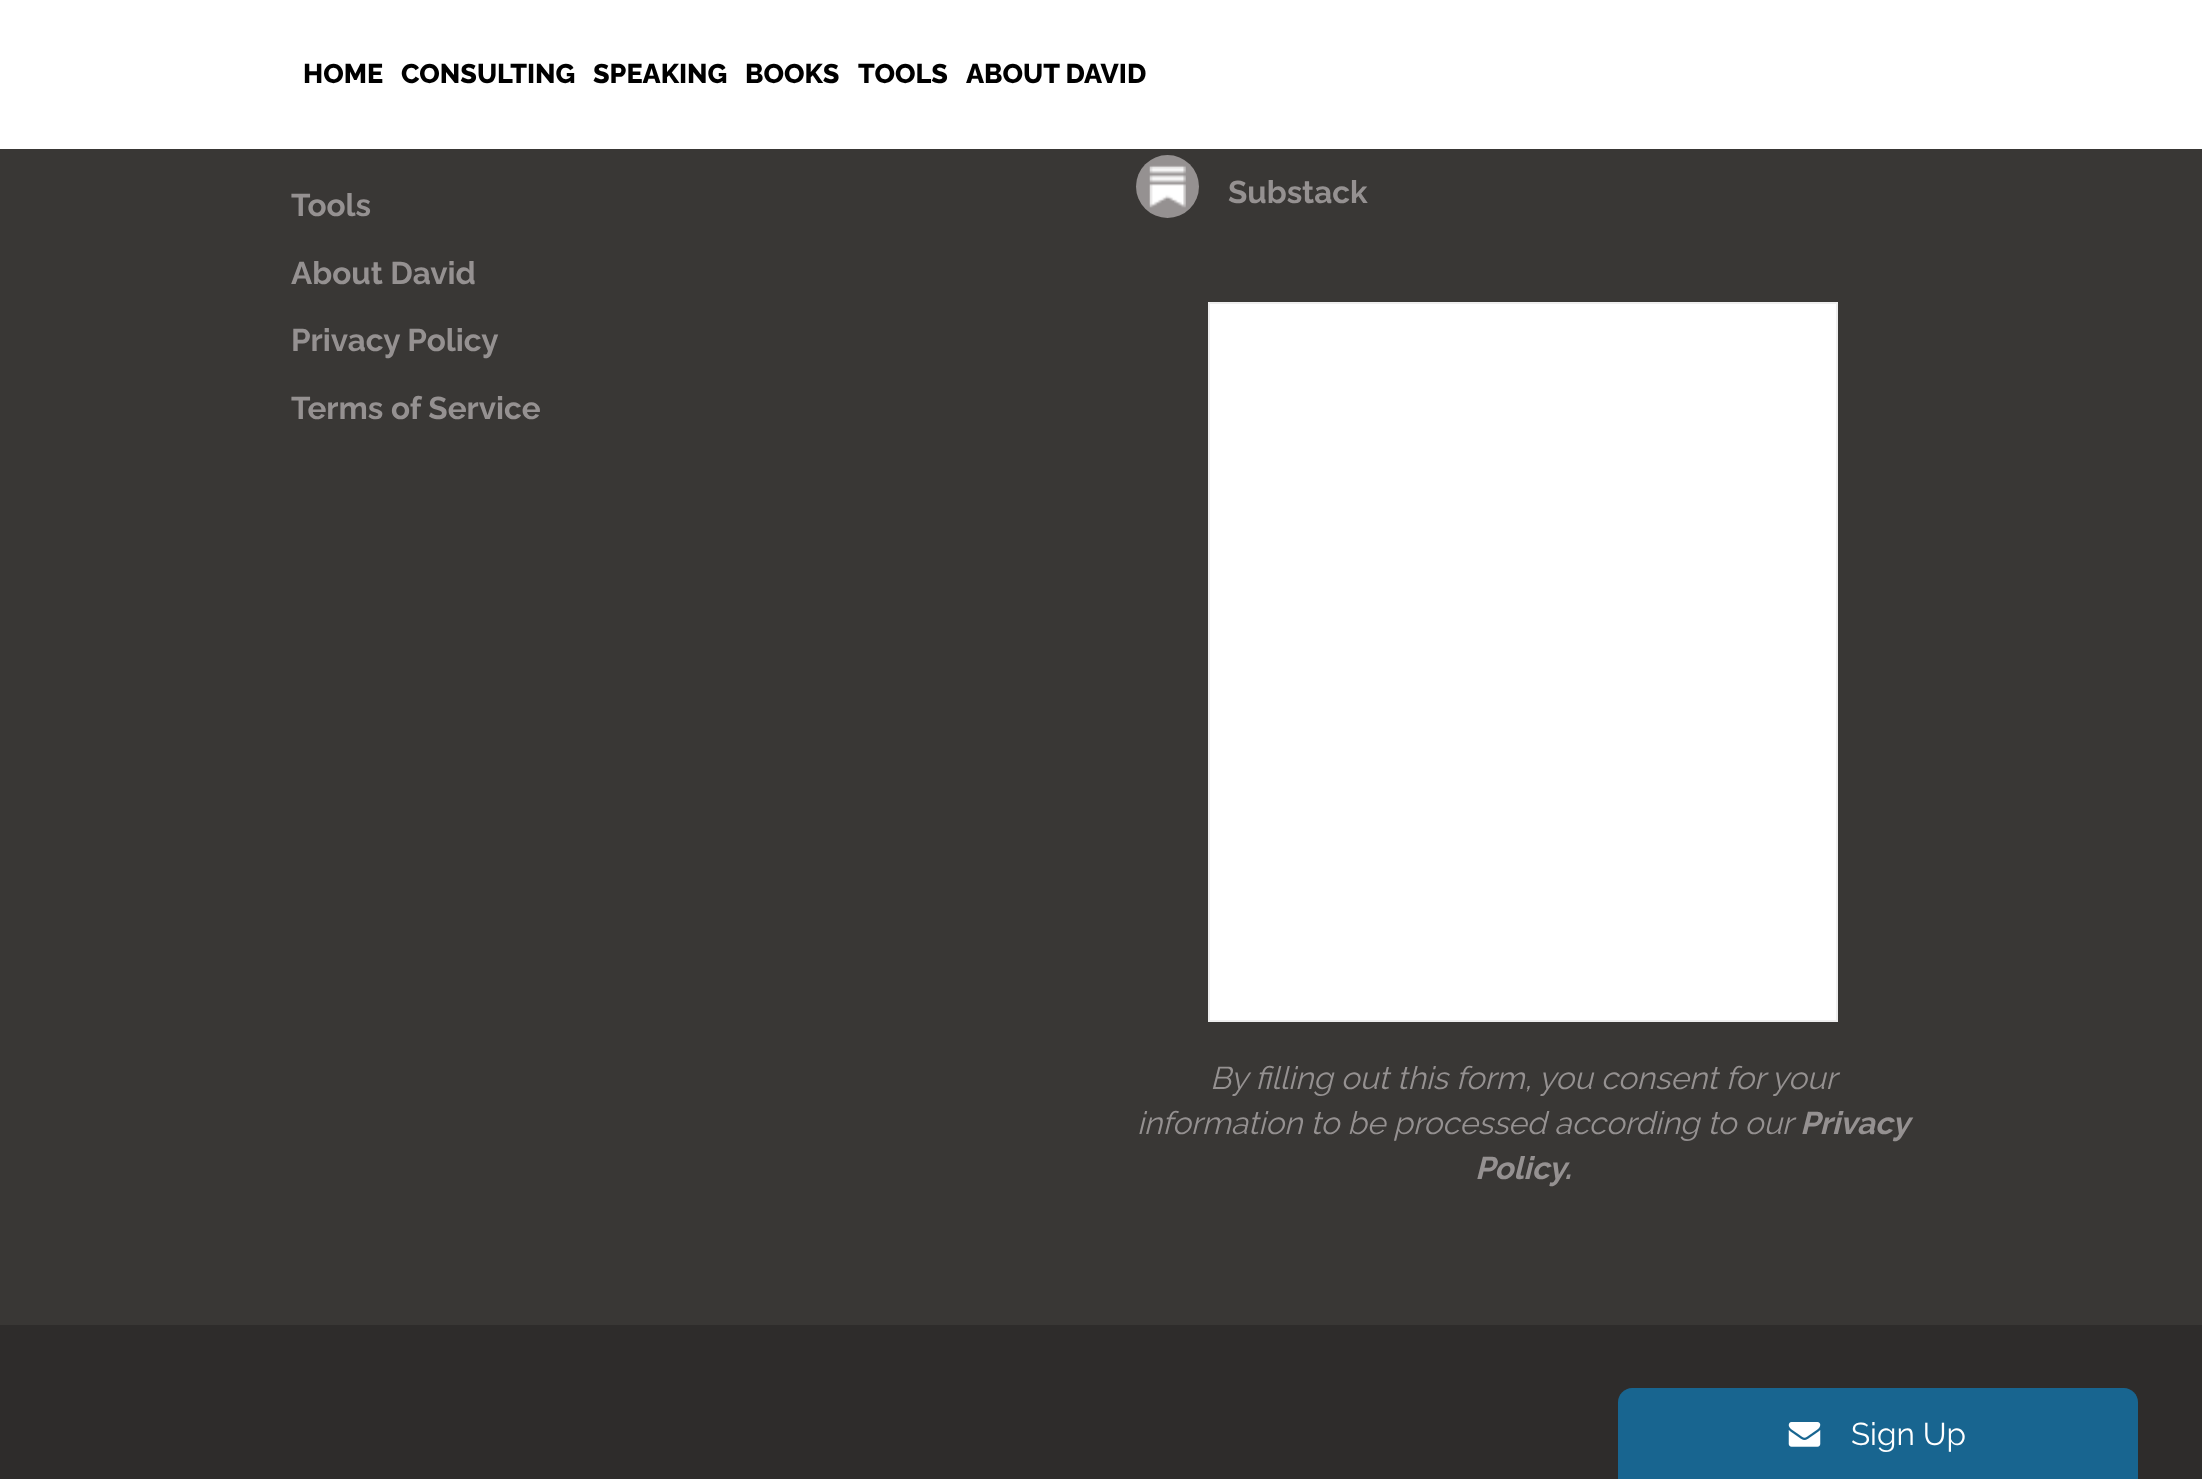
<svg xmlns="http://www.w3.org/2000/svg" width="2202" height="1479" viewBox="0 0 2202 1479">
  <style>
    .t1 { font: 800 27px Raleway; fill: #000; }
    .t2 { font: bold 31.5px Raleway; fill: #959191; }
    .t3 { font: italic 31.5px Raleway; fill: #959191; }
    .t4 { font: italic bold 31.5px Raleway; fill: #959191; }
    .t5 { font: 31.5px Raleway; fill: #fff; }
  </style>
  <rect width="100%" height="100%" fill="#2e2c2b"/>
  <rect x="0" y="0" width="2202" height="149" fill="#fff"/>
  <text x="303" y="83" class="t1">HOME</text>
  <text x="401" y="83" class="t1">CONSULTING</text>
  <text x="593" y="83" class="t1">SPEAKING</text>
  <text x="745" y="83" class="t1">BOOKS</text>
  <text x="858" y="83" class="t1">TOOLS</text>
  <text x="966" y="83" class="t1">ABOUT DAVID</text>
  <rect x="0" y="149" width="2202" height="1176" fill="#393735"/>
  <text x="291" y="216" class="t2">Tools</text>
  <text x="291" y="284" class="t2">About David</text>
  <text x="291" y="351" class="t2">Privacy Policy</text>
  <text x="291" y="419" class="t2">Terms of Service</text>
  <circle cx="1167.5" cy="186.5" r="31.5" fill="#959191"/>
  <image x="1149" y="165" width="37" height="43" href="images/1.png"/>
  <text x="1228" y="203" class="t2">Substack</text>
  <rect x="1209" y="303" width="628" height="718" fill="#fff" stroke="#eee" stroke-width="2"/>
  <text x="1210" y="1089" class="t3">By filling out this form, you consent for your</text>
  <text x="1137" y="1134" class="t3">information to be processed according to our</text>
  <text x="1800" y="1134" class="t4">Privacy</text>
  <text x="1475" y="1179" class="t4">Policy.</text>
  <path d="M1632 1388H2124C2131.5 1388 2138 1394.5 2138 1402V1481H1618V1402C1618 1394.5 1624.5 1388 1632 1388Z" fill="#186590"/>
  <image x="1788" y="1422" width="33" height="25" href="images/2.png"/>
  <text x="1851" y="1445" class="t5">Sign Up</text>
</svg>
